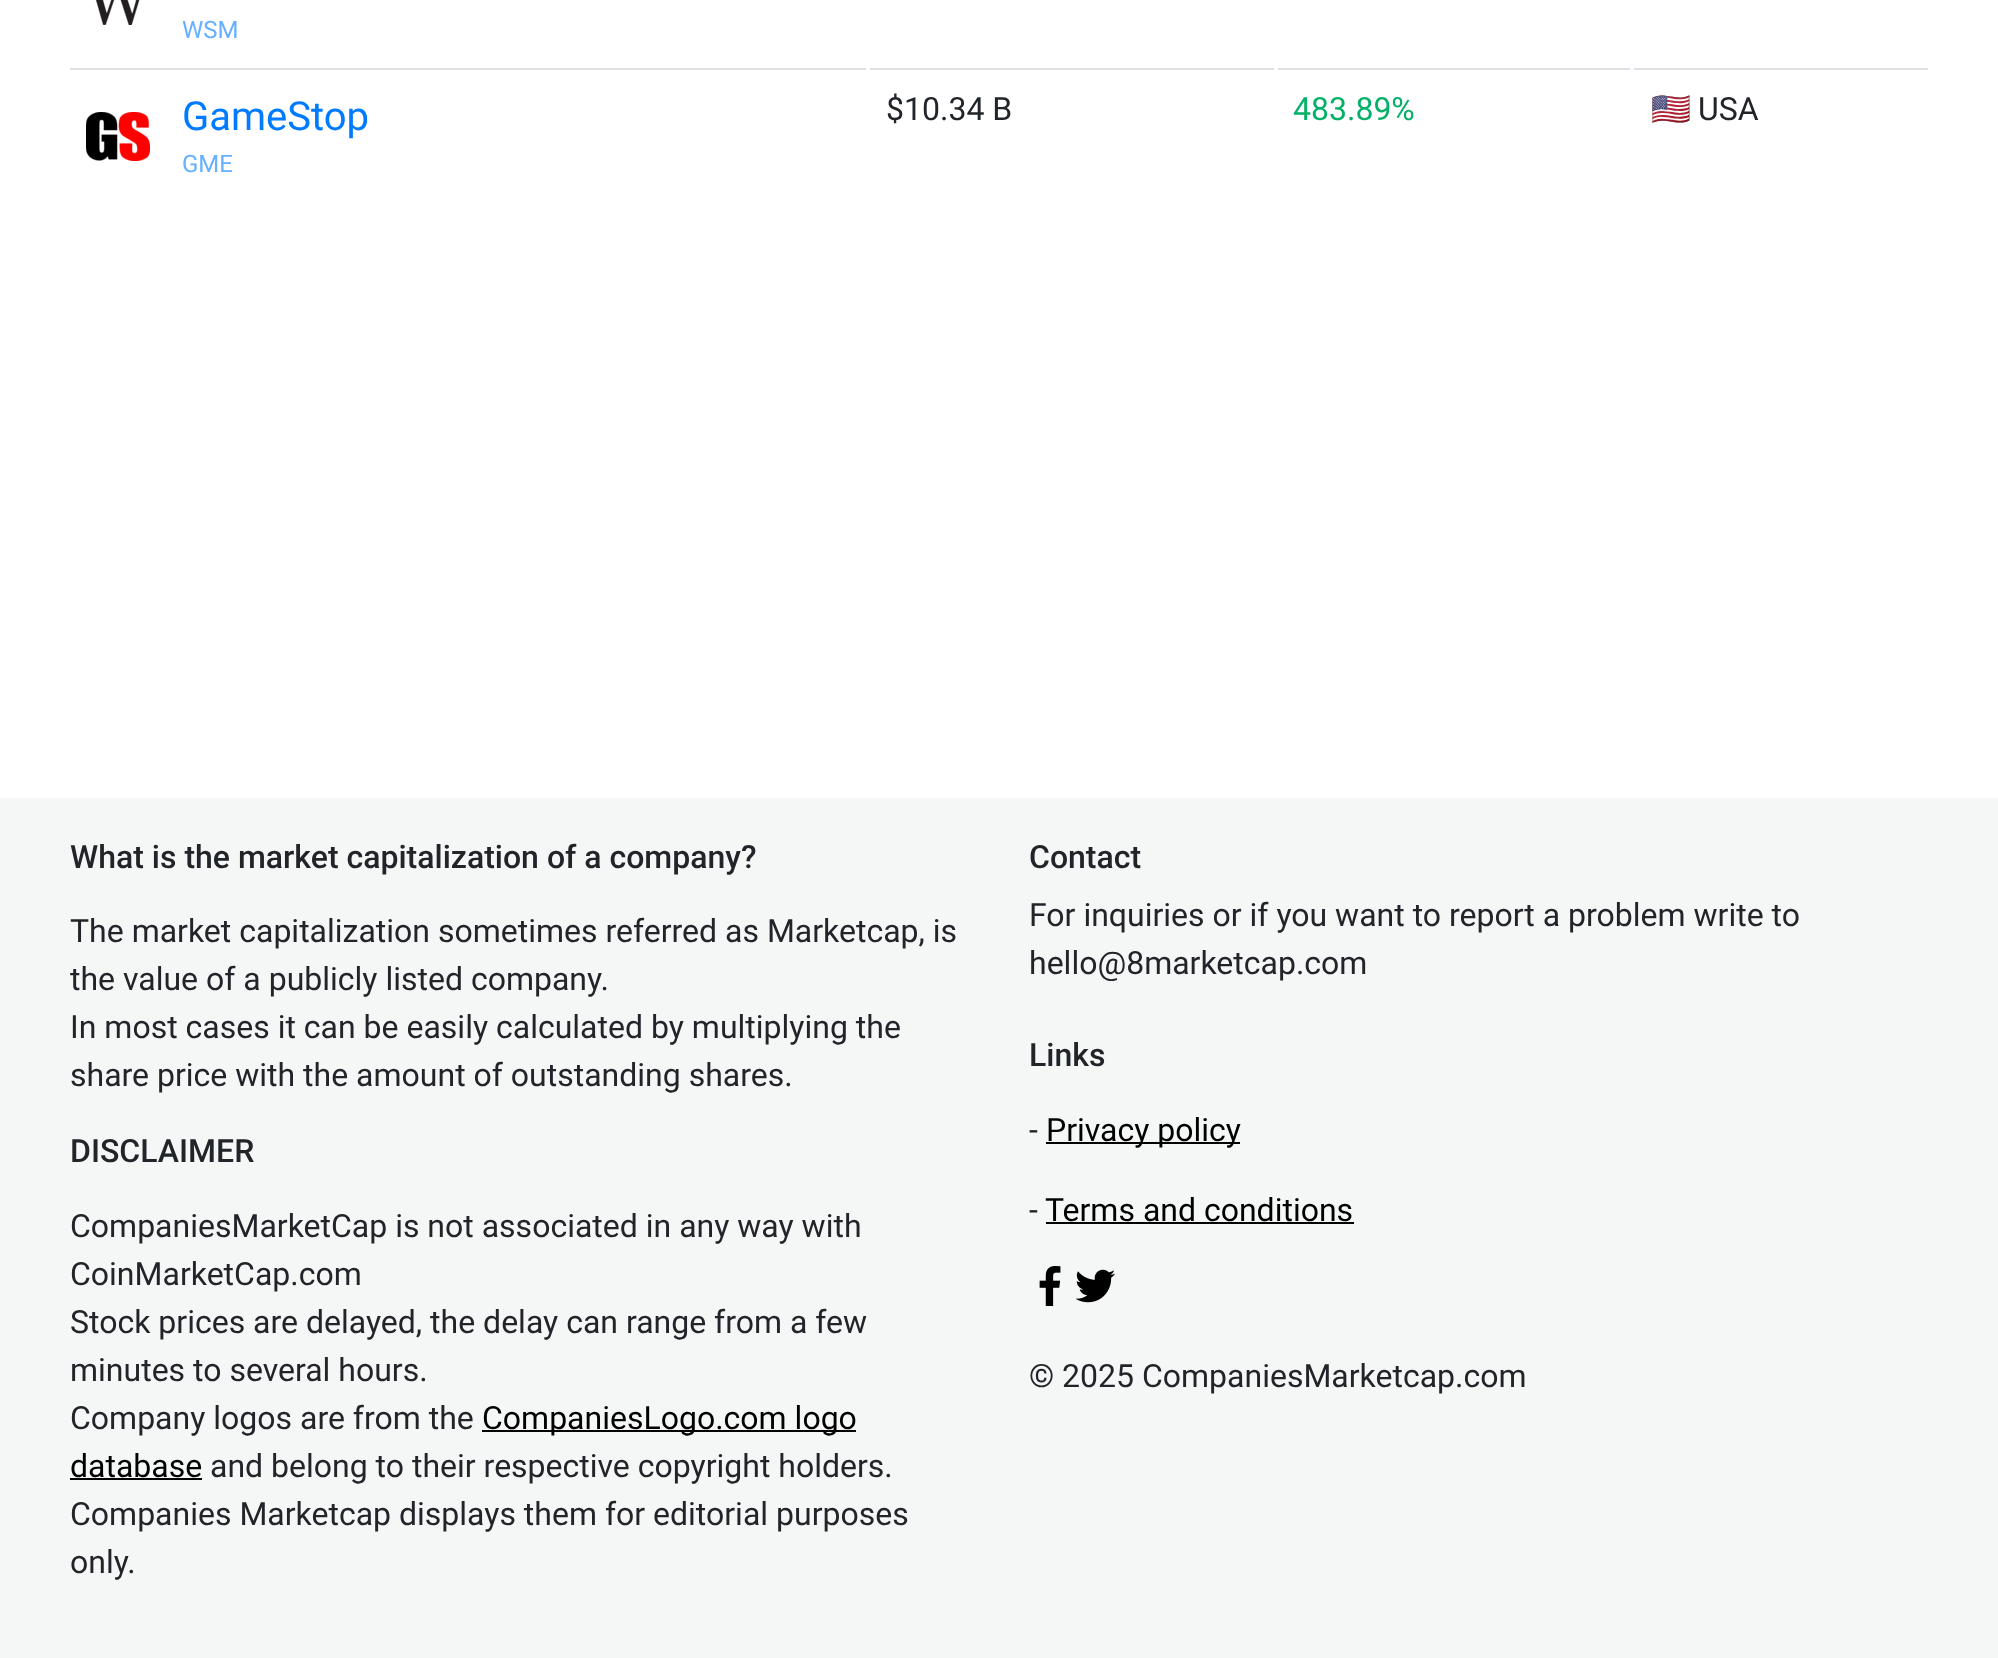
<svg xmlns="http://www.w3.org/2000/svg" width="1998" height="1658" viewBox="0 0 1998 1658">
  <style>
    .t1 { font: 24px Roboto; fill: #66b0ff; }
    .t2 { font: 40px Roboto; fill: #007bff; }
    .t3 { font: 32px Roboto; fill: #212529; }
    .t4 { font: 32px Roboto; fill: #05b169; }
    .t5 { font: 32px Noto Color Emoji; fill: #212529; }
    .t6 { font: 500 32px Roboto; fill: #212529; }
    .t7 { font: 32px Roboto; fill: #000; }
  </style>
  <rect width="100%" height="100%" fill="#fff"/>
  <image x="95" y="0" width="45" height="25" href="images/1.png"/>
  <text x="182" y="38" class="t1">WSM</text>
  <rect x="70" y="68" width="796" height="2" fill="#dee2e6"/>
  <image x="86" y="112" width="64" height="49" href="images/2.png"/>
  <text x="182" y="130" class="t2">GameStop</text>
  <text x="182" y="172" class="t1">GME</text>
  <rect x="870" y="68" width="404" height="2" fill="#dee2e6"/>
  <text x="886" y="120" class="t3">$10.34 B</text>
  <rect x="1278" y="68" width="352" height="2" fill="#dee2e6"/>
  <text x="1293" y="120" class="t4">483.89%</text>
  <rect x="1634" y="68" width="294" height="2" fill="#dee2e6"/>
  <text x="1651" y="120" class="t5">🇺🇸</text>
  <text x="1698" y="120" class="t3">USA</text>
  <rect x="0" y="798" width="1998" height="860" fill="#f5f7f7"/>
  <text x="70" y="868" class="t6">What is the market capitalization of a company?</text>
  <text x="70" y="942" class="t3">The market capitalization sometimes referred as Marketcap, is</text>
  <text x="70" y="990" class="t3">the value of a publicly listed company.</text>
  <text x="70" y="1038" class="t3">In most cases it can be easily calculated by multiplying the</text>
  <text x="70" y="1086" class="t3">share price with the amount of outstanding shares.</text>
  <text x="70" y="1162" class="t6">DISCLAIMER</text>
  <text x="70" y="1237" class="t3">CompaniesMarketCap is not associated in any way with</text>
  <text x="70" y="1285" class="t3">CoinMarketCap.com</text>
  <text x="70" y="1333" class="t3">Stock prices are delayed, the delay can range from a few</text>
  <text x="70" y="1381" class="t3">minutes to several hours.</text>
  <text x="70" y="1429" class="t3">Company logos are from the</text>
  <rect x="482" y="1430" width="374" height="2" fill="#000"/>
  <text x="482" y="1429" class="t7">CompaniesLogo.com logo</text>
  <text x="70" y="1477" class="t7">database</text>
  <rect x="70" y="1478" width="132" height="2" fill="#000"/>
  <text x="210" y="1477" class="t3">and belong to their respective copyright holders.</text>
  <text x="70" y="1525" class="t3">Companies Marketcap displays them for editorial purposes</text>
  <text x="70" y="1573" class="t3">only.</text>
  <text x="1029" y="868" class="t6">Contact</text>
  <text x="1029" y="926" class="t3">For inquiries or if you want to report a problem write to</text>
  <text x="1029" y="974" class="t3">hello@8marketcap.com</text>
  <text x="1029" y="1066" class="t6">Links</text>
  <text x="1029" y="1141" class="t3">-</text>
  <rect x="1046" y="1142" width="194" height="2" fill="#000"/>
  <text x="1046" y="1141" class="t7">Privacy policy</text>
  <text x="1029" y="1221" class="t3">-</text>
  <text x="1045" y="1221" class="t7">Terms and conditions</text>
  <rect x="1046" y="1222" width="308" height="2" fill="#000"/>
  <image x="1039" y="1266" width="22" height="40" href="images/3.png"/>
  <image x="1076" y="1269" width="39" height="34" href="images/4.png"/>
  <text x="1029" y="1387" class="t3">© 2025 CompaniesMarketcap.com</text>
</svg>
